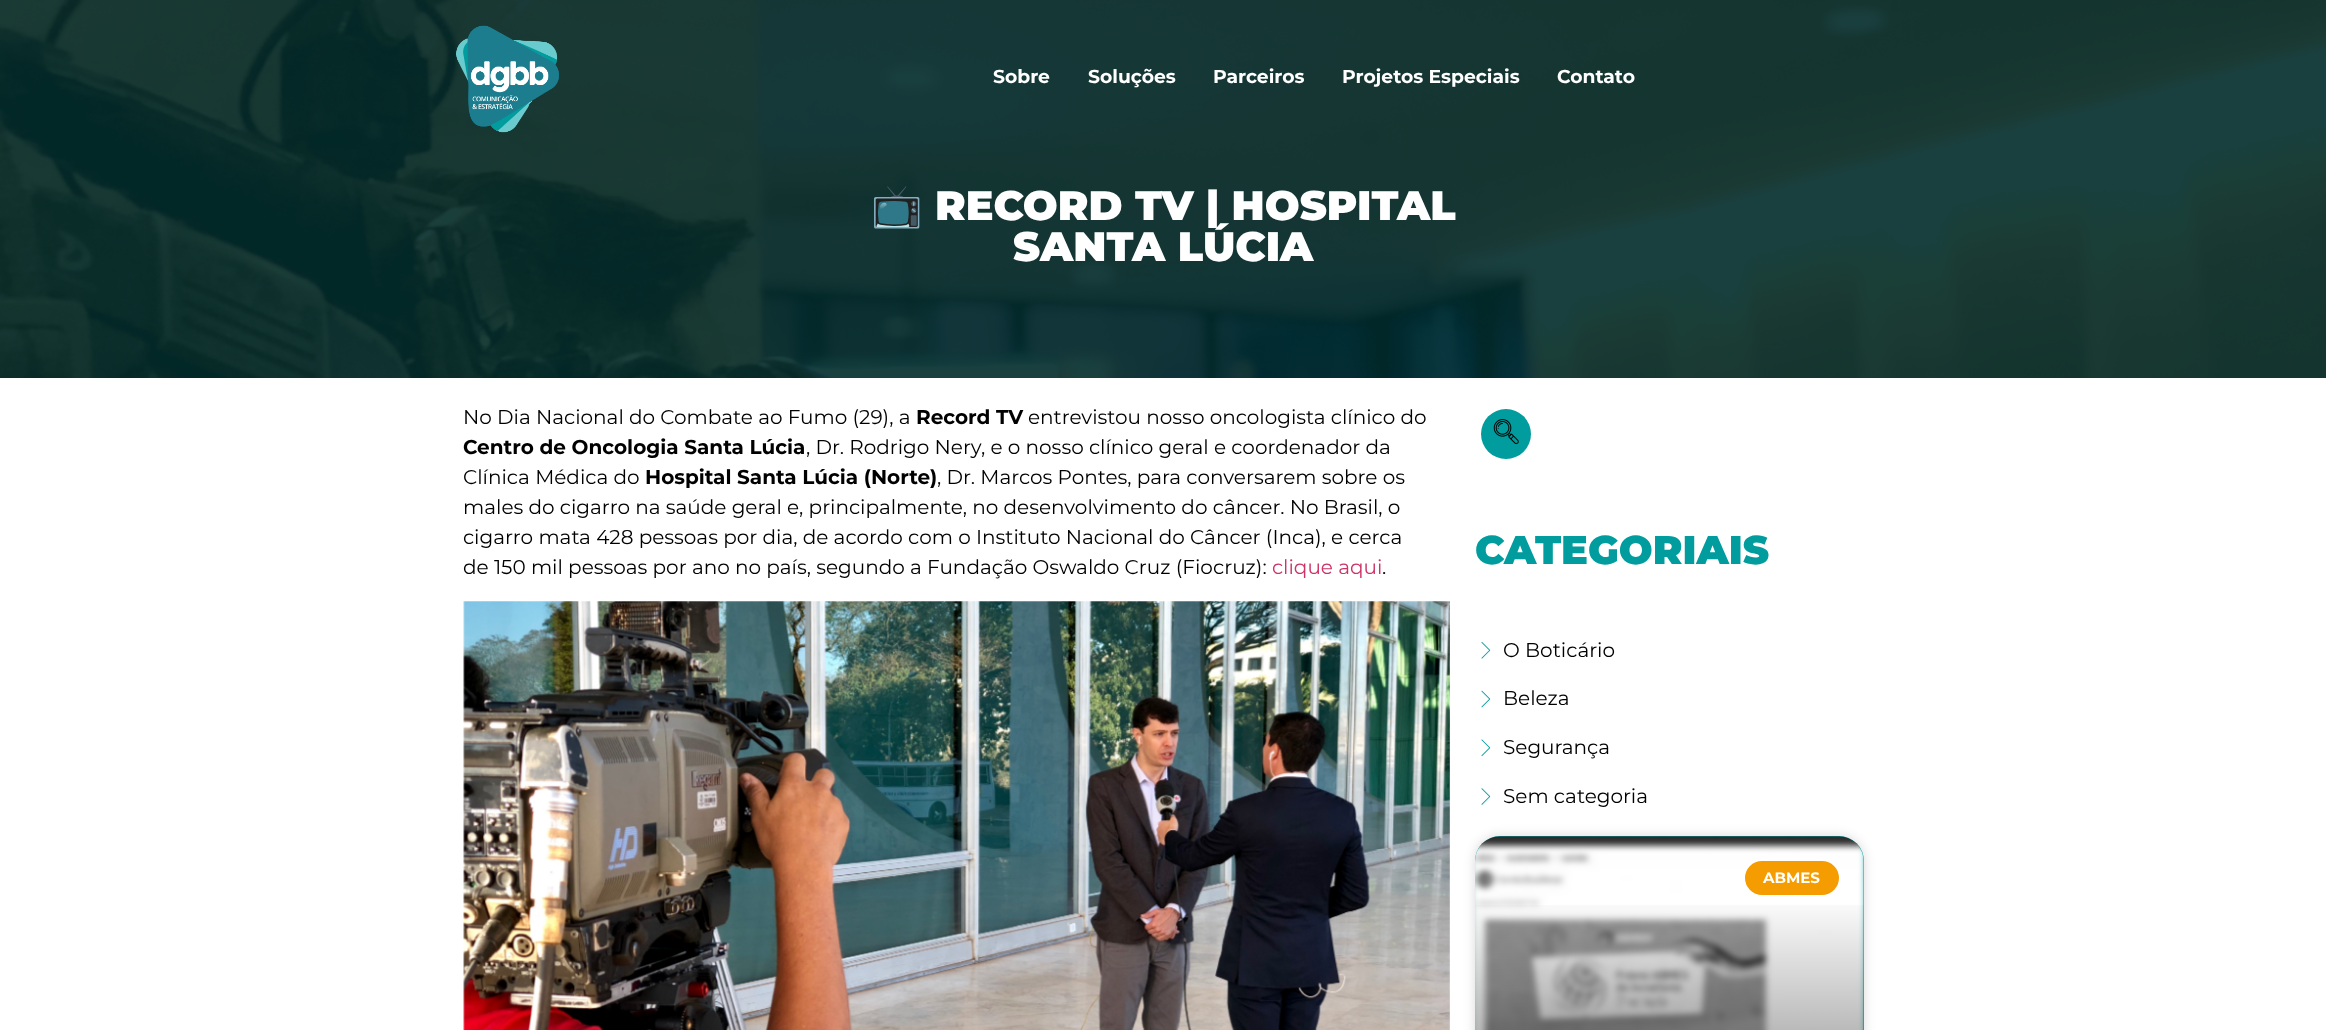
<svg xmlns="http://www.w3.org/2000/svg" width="2326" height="1030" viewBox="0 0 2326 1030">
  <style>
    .t1 { font: bold 18.75px Montserrat; fill: #fff; }
    .t2 { font: bold 41.25px Noto Color Emoji; fill: #fff; }
    .t3 { font: 900 41.25px Montserrat; fill: #fff; }
    .t4 { font: 20px Montserrat; fill: #000; }
    .t5 { font: bold 20px Montserrat; fill: #000; }
    .t6 { font: 20px Montserrat; fill: #c36; }
    .t7 { font: 900 40px Montserrat; fill: #009c9e; }
    .t8 { font: bold 15px Montserrat; fill: #fff; }
  </style>
  <defs>
    <linearGradient id="g1" gradientUnits="userSpaceOnUse" x1="1669" y1="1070" x2="1669" y2="836"><stop offset="0" stop-color="#000" stop-opacity="0.35"/><stop offset="0.75" stop-color="#000" stop-opacity="0"/></linearGradient>
  </defs>
  <rect width="100%" height="100%" fill="#fff"/>
  <image x="0" y="0" width="2326" height="378" href="images/2.png"/>
  <image x="456" y="25" width="103" height="108" href="images/1.png"/>
  <text x="993" y="83" class="t1">Sobre</text>
  <text x="1088" y="83" class="t1">Soluções</text>
  <text x="1213" y="83" class="t1">Parceiros</text>
  <text x="1342" y="83" class="t1">Projetos Especiais</text>
  <text x="1557" y="83" class="t1">Contato</text>
  <text x="871" y="220" class="t2">📺</text>
  <text x="935" y="220" class="t3">RECORD TV | HOSPITAL</text>
  <text x="1013" y="261" class="t3">SANTA LÚCIA</text>
  <text x="463" y="424" class="t4">No Dia Nacional do Combate ao Fumo (29), a</text>
  <text x="916" y="424" class="t5">Record TV</text>
  <text x="1028" y="424" class="t4">entrevistou nosso oncologista clínico do</text>
  <text x="463" y="454" class="t5">Centro de Oncologia Santa Lúcia</text>
  <text x="806" y="454" class="t4">, Dr. Rodrigo Nery, e o nosso clínico geral e coordenador da</text>
  <text x="463" y="484" class="t4">Clínica Médica do</text>
  <text x="645" y="484" class="t5">Hospital Santa Lúcia (Norte)</text>
  <text x="937" y="484" class="t4">, Dr. Marcos Pontes, para conversarem sobre os</text>
  <text x="463" y="514" class="t4">males do cigarro na saúde geral e, principalmente, no desenvolvimento do câncer. No Brasil, o</text>
  <text x="463" y="544" class="t4">cigarro mata 428 pessoas por dia, de acordo com o Instituto Nacional do Câncer (Inca), e cerca</text>
  <text x="463" y="574" class="t4">de 150 mil pessoas por ano no país, segundo a Fundação Oswaldo Cruz (Fiocruz):</text>
  <text x="1272" y="574" class="t6">clique aqui</text>
  <text x="1382" y="574" class="t4">.</text>
  <image x="463" y="601" width="987" height="429" href="images/3.png"/>
  <circle cx="1506" cy="434" r="25" fill="#009c9e"/>
  <image x="1493" y="419" width="26" height="25" href="images/4.png"/>
  <text x="1475" y="564" class="t7">CATEGORIAIS</text>
  <image x="1481" y="642" width="10" height="17" href="images/5.png"/>
  <text x="1503" y="657" class="t4">O Boticário</text>
  <image x="1481" y="690" width="10" height="18" href="images/6.png"/>
  <text x="1503" y="705" class="t4">Beleza</text>
  <image x="1481" y="739" width="10" height="18" href="images/7.png"/>
  <text x="1503" y="754" class="t4">Segurança</text>
  <image x="1481" y="788" width="10" height="17" href="images/8.png"/>
  <text x="1503" y="803" class="t4">Sem categoria</text>
  <rect x="1475" y="836" width="389" height="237" rx="25" fill="#00000026" filter="blur(6px)"/>
  <rect x="1475" y="836" width="389" height="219" rx="25" fill="#009c9e"/>
  <image x="1475" y="836" width="389" height="194" href="images/9.png"/>
  <rect x="1475" y="905" width="389" height="125" fill="url(#g1)"/>
  <rect x="1745" y="861" width="94" height="34" rx="17" fill="#f59c00"/>
  <text x="1763" y="883" class="t8">ABMES</text>
</svg>
